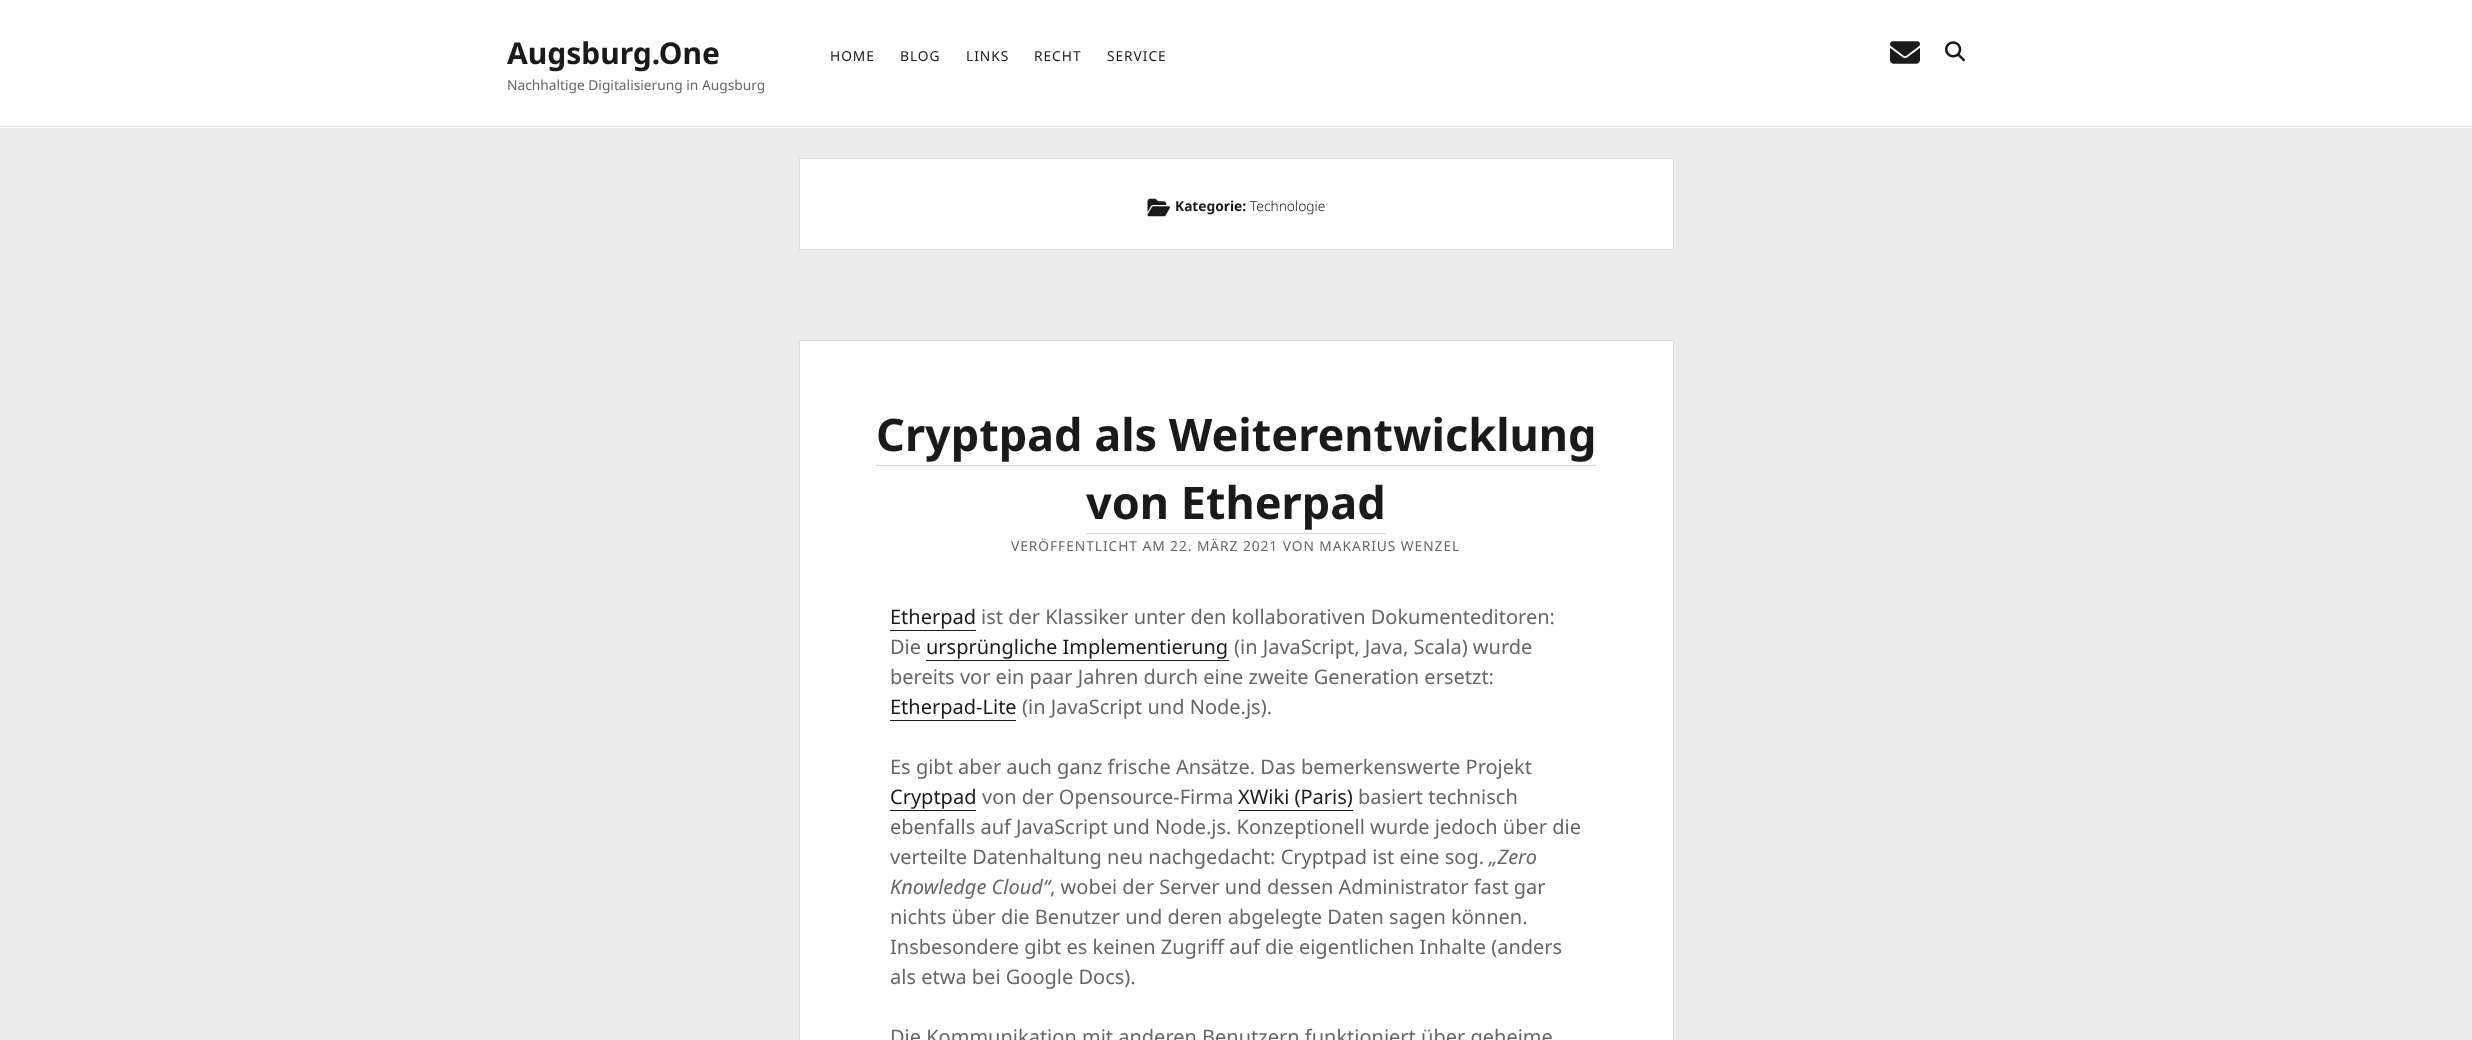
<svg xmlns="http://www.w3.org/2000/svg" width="2472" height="1040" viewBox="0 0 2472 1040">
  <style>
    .t1 { font: bold 30px Noto Sans; fill: #1a1a1a; }
    .t2 { font: 13.75px Noto Sans; fill: #666; }
    .t3 { font: 13.75px Noto Sans; letter-spacing: 0.95px; fill: #1a1a1a; }
    .t4 { font: bold 13.75px Noto Sans; fill: #1a1a1a; }
    .t5 { font: 300 13.75px Noto Sans; fill: #1a1a1a; }
    .t6 { font: bold 45px Noto Sans; fill: #1a1a1a; }
    .t7 { font: 13.75px Noto Sans; letter-spacing: 0.95px; fill: #666; }
    .t8 { font: 20px Noto Sans; fill: #1a1a1a; }
    .t9 { font: 20px Noto Sans; fill: #666; }
    .t10 { font: italic 20px Noto Sans; fill: #666; }
  </style>
  <rect width="100%" height="100%" fill="#ededed"/>
  <rect x="0" y="0" width="2472" height="128" fill="#fff"/>
  <text x="507" y="64" class="t1">Augsburg.One</text>
  <text x="507" y="90" class="t2">Nachhaltige Digitalisierung in Augsburg</text>
  <text x="830" y="61" class="t3">HOME</text>
  <text x="900" y="61" class="t3">BLOG</text>
  <text x="966" y="61" class="t3">LINKS</text>
  <text x="1034" y="61" class="t3">RECHT</text>
  <text x="1107" y="61" class="t3">SERVICE</text>
  <image x="1890" y="41" width="30" height="23" href="images/1.png"/>
  <image x="1945" y="41" width="20" height="21" href="images/2.png"/>
  <rect x="0" y="126" width="2472" height="1" fill="#e0e0e0"/>
  <rect x="799.5" y="158.5" width="874" height="91" fill="#fff" stroke="#e0e0e0"/>
  <image x="1147" y="198" width="23" height="19" href="images/3.png"/>
  <text x="1175" y="211" class="t4">Kategorie:</text>
  <text x="1250" y="211" class="t5">Technologie</text>
  <rect x="799.5" y="340.5" width="874" height="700" fill="#fff" stroke="#e0e0e0"/>
  <text x="876" y="451" class="t6">Cryptpad als Weiterentwicklung</text>
  <rect x="876" y="465" width="720" height="1" fill="#d4d4d4"/>
  <text x="1086" y="519" class="t6">von Etherpad</text>
  <rect x="1086" y="533" width="300" height="1" fill="#d4d4d4"/>
  <text x="1011" y="551" class="t7">VERÖFFENTLICHT AM 22. MÄRZ 2021 VON MAKARIUS WENZEL</text>
  <text x="890" y="624" class="t8">Etherpad</text>
  <rect x="890" y="630" width="86" height="1" fill="#1a1a1a"/>
  <text x="981" y="624" class="t9">ist der Klassiker unter den kollaborativen Dokumenteditoren:</text>
  <text x="890" y="654" class="t9">Die</text>
  <text x="926" y="654" class="t8">ursprüngliche Implementierung</text>
  <rect x="926" y="660" width="303" height="1" fill="#1a1a1a"/>
  <text x="1234" y="654" class="t9">(in JavaScript, Java, Scala) wurde</text>
  <text x="890" y="684" class="t9">bereits vor ein paar Jahren durch eine zweite Generation ersetzt:</text>
  <text x="890" y="714" class="t8">Etherpad-Lite</text>
  <rect x="890" y="720" width="126" height="1" fill="#1a1a1a"/>
  <text x="1022" y="714" class="t9">(in JavaScript und Node.js).</text>
  <text x="890" y="774" class="t9">Es gibt aber auch ganz frische Ansätze. Das bemerkenswerte Projekt</text>
  <text x="890" y="804" class="t8">Cryptpad</text>
  <rect x="890" y="810" width="86" height="1" fill="#1a1a1a"/>
  <text x="982" y="804" class="t9">von der Opensource-Firma</text>
  <text x="1238" y="804" class="t8">XWiki (Paris)</text>
  <rect x="1239" y="810" width="114" height="1" fill="#1a1a1a"/>
  <text x="1358" y="804" class="t9">basiert technisch</text>
  <text x="890" y="834" class="t9">ebenfalls auf JavaScript und Node.js. Konzeptionell wurde jedoch über die</text>
  <text x="890" y="864" class="t9">verteilte Datenhaltung neu nachgedacht: Cryptpad ist eine sog.</text>
  <text x="1489" y="864" class="t10">„Zero</text>
  <text x="890" y="894" class="t10">Knowledge Cloud“</text>
  <text x="1050" y="894" class="t9">, wobei der Server und dessen Administrator fast gar</text>
  <text x="890" y="924" class="t9">nichts über die Benutzer und deren abgelegte Daten sagen können.</text>
  <text x="890" y="954" class="t9">Insbesondere gibt es keinen Zugriff auf die eigentlichen Inhalte (anders</text>
  <text x="890" y="984" class="t9">als etwa bei Google Docs).</text>
  <text x="890" y="1044" class="t9">Die Kommunikation mit anderen Benutzern funktioniert über geheime</text>
</svg>
